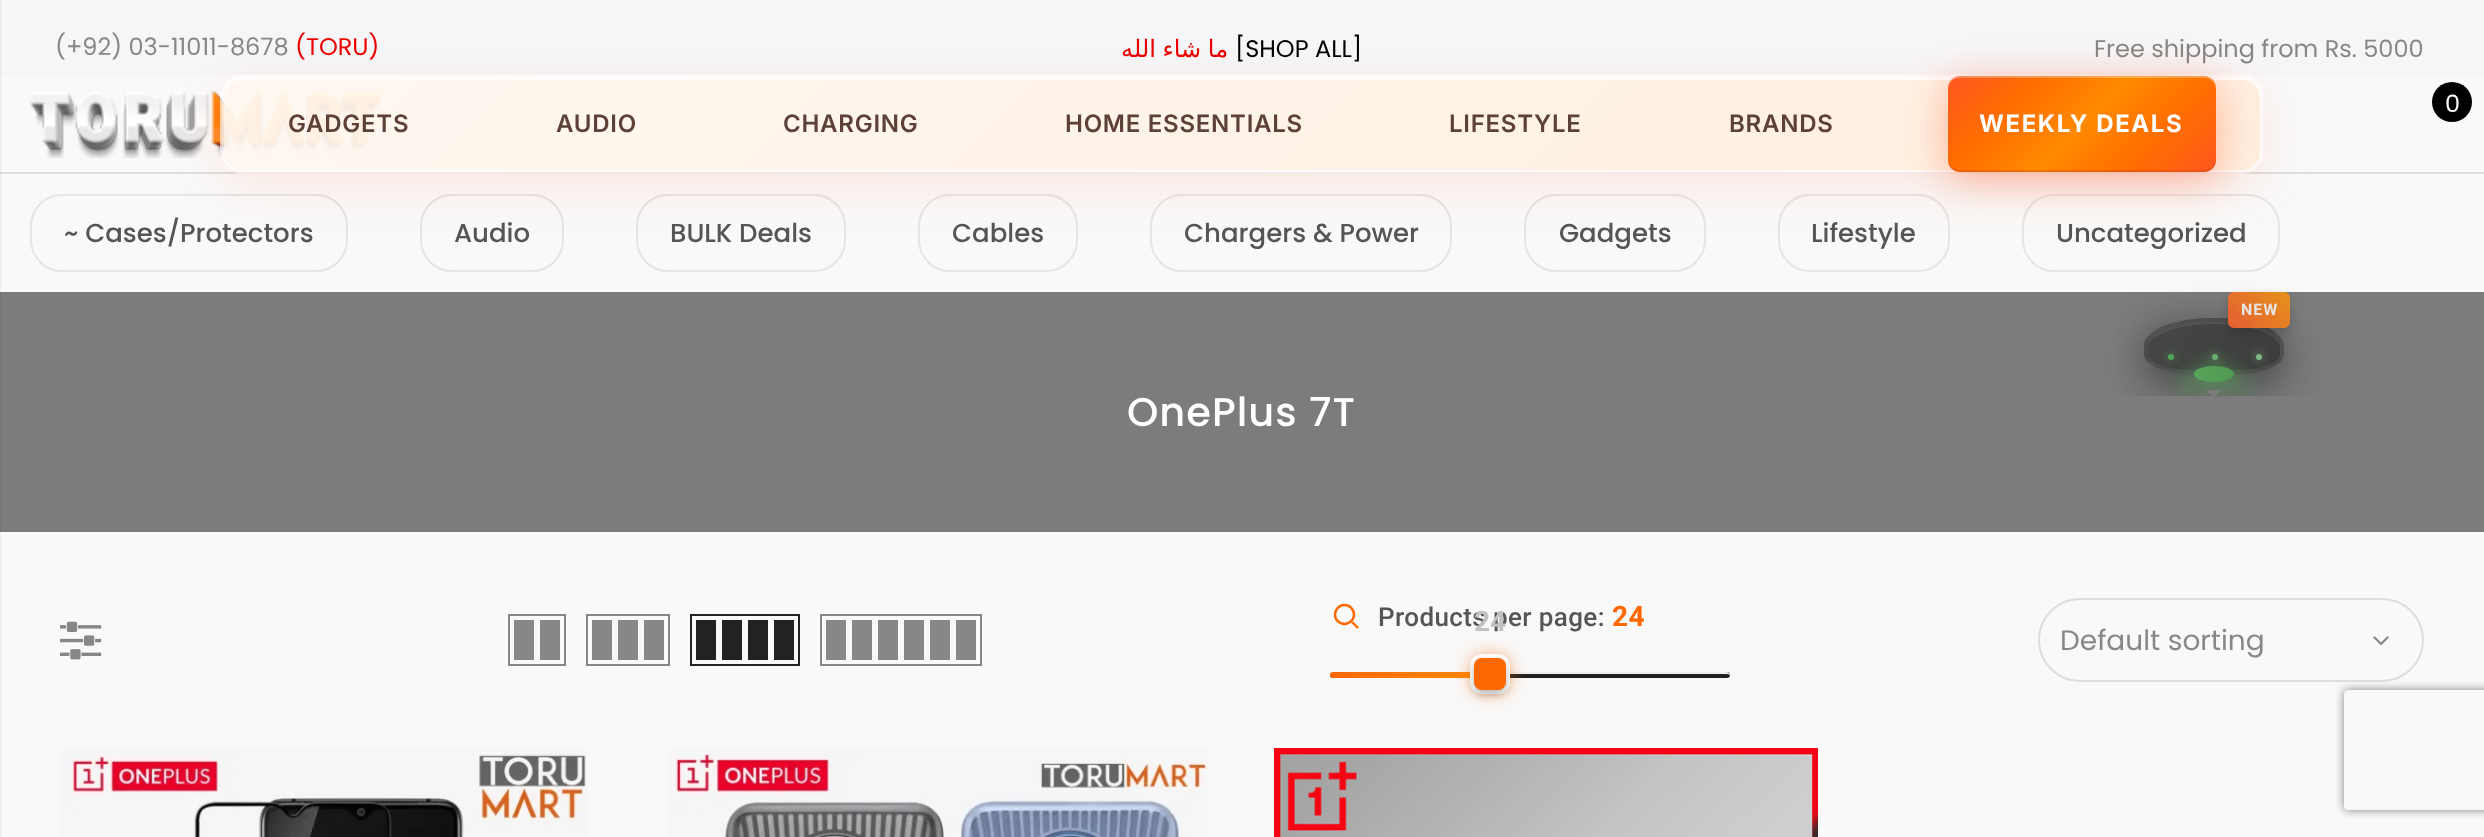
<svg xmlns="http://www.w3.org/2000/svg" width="2484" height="837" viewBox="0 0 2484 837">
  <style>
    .t1 { font: 24px Poppins; fill: #878787; }
    .t2 { font: 24px Poppins; fill: #ec0101; }
    .t3 { font: 24px DejaVu Sans; direction: rtl; fill: #ec0101; }
    .t4 { font: 24px Poppins; fill: #000; }
    .t5 { font: 24px Poppins; fill: #fff; }
    .t6 { font: 600 24px Inter; letter-spacing: 0.75px; fill: #5d4037; }
    .t7 { font: bold 24px Inter; letter-spacing: 1.6px; fill: #fff; }
    .t8 { font: 500 26px Poppins; fill: #555; }
    .t9 { font: 500 40px Poppins; letter-spacing: 1px; fill: #fff; }
    .t10 { font: 500 26px Roboto; letter-spacing: 0.4px; fill: #555; }
    .t11 { font: bold 28px Roboto; letter-spacing: 0.4px; fill: #ff6700; }
    .t12 { font: bold 28px Roboto; fill: #c2c2c2; }
    .t13 { font: 28px Poppins; fill: #878787; }
    .t14 { font: bold 16px Roboto; letter-spacing: 1px; fill: #e5e5e5; }
  </style>
  <defs>
    <clipPath id="clip1"><path d="M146 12H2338V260H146ZM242 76H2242C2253 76 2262 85 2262 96V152C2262 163 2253 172 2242 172H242C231 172 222 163 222 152V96C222 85 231 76 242 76Z" clip-rule="evenodd"/></clipPath>
    <clipPath id="clip2"><rect x="222" y="76" width="2040" height="96" rx="20"/></clipPath>
    <linearGradient id="g1" gradientUnits="userSpaceOnUse" x1="710" y1="-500" x2="1774" y2="564"><stop offset="0" stop-color="#fff8f0"/><stop offset="0.5" stop-color="#fef3e8"/><stop offset="1" stop-color="#fed"/></linearGradient>
    <linearGradient id="g2" gradientUnits="userSpaceOnUse" x1="710" y1="-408" x2="1774" y2="656"><stop offset="0" stop-color="#fff8f0" stop-opacity="0.95"/><stop offset="0.5" stop-color="#fff2e6" stop-opacity="0.9"/><stop offset="1" stop-color="#ffeddc" stop-opacity="0.95"/></linearGradient>
    <linearGradient id="g3" gradientUnits="userSpaceOnUse" x1="710" y1="-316" x2="1774" y2="748"><stop offset="0" stop-color="#fff8f0" stop-opacity="0.95"/><stop offset="0.5" stop-color="#fff2e6" stop-opacity="0.9"/><stop offset="1" stop-color="#ffeddc" stop-opacity="0.95"/></linearGradient>
    <linearGradient id="g4" gradientUnits="userSpaceOnUse" x1="1991" y1="33" x2="2173" y2="215"><stop offset="0" stop-color="#ff5722"/><stop offset="0.25" stop-color="#ff6d00"/><stop offset="0.5" stop-color="#ff8a00"/><stop offset="0.75" stop-color="#ff6d00"/><stop offset="1" stop-color="#ff5722"/></linearGradient>
    <linearGradient id="g5" gradientUnits="userSpaceOnUse" x1="1330" y1="675" x2="1490" y2="675"><stop offset="0" stop-color="#ff6700"/><stop offset="1" stop-color="#ff8c00"/></linearGradient>
    <clipPath id="clip3"><path d="M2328 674H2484V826H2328ZM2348 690H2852C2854 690 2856 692 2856 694V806C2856 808 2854 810 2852 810H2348C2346 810 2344 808 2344 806V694C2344 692 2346 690 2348 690Z" clip-rule="evenodd"/></clipPath>
    <linearGradient id="g6" gradientUnits="userSpaceOnUse" x1="2169" y1="253" x2="2259" y2="343"><stop offset="0" stop-color="#474747"/><stop offset="1" stop-color="#3c3c3c"/></linearGradient>
    <linearGradient id="g7" gradientUnits="userSpaceOnUse" x1="2037" y1="301" x2="2127" y2="391"><stop offset="0" stop-color="#474747"/><stop offset="1" stop-color="#3c3c3c"/></linearGradient>
    <linearGradient id="g8" gradientUnits="userSpaceOnUse" x1="2169" y1="301" x2="2259" y2="391"><stop offset="0" stop-color="#474747"/><stop offset="1" stop-color="#3c3c3c"/></linearGradient>
    <linearGradient id="g9" gradientUnits="userSpaceOnUse" x1="2301" y1="301" x2="2391" y2="391"><stop offset="0" stop-color="#474747"/><stop offset="1" stop-color="#3c3c3c"/></linearGradient>
    <linearGradient id="g10" gradientUnits="userSpaceOnUse" x1="2169" y1="349" x2="2259" y2="439"><stop offset="0" stop-color="#474747"/><stop offset="1" stop-color="#3c3c3c"/></linearGradient>
    <linearGradient id="g11" gradientUnits="userSpaceOnUse" x1="2235" y1="335" x2="2284" y2="286"><stop offset="0" stop-color="#e55e34"/><stop offset="1" stop-color="#e59219"/></linearGradient>
    <linearGradient id="g12" gradientUnits="userSpaceOnUse" x1="2194" y1="374" x2="2234" y2="374"><stop offset="0" stop-color="#56a559"/><stop offset="1" stop-color="#509953"/></linearGradient>
    <clipPath id="clip4"><rect x="2094" y="396" width="240" height="58" rx="10"/></clipPath>
    <linearGradient id="g13" gradientUnits="userSpaceOnUse" x1="2214" y1="344" x2="2214" y2="398"><stop offset="0" stop-color="#7c7c7c"/><stop offset="1" stop-color="#7c7c7c"/></linearGradient>
    <linearGradient id="g14" gradientUnits="userSpaceOnUse" x1="2214" y1="398" x2="2214" y2="452"><stop offset="0" stop-color="#7c7c7c"/><stop offset="1" stop-color="#7c7c7c"/></linearGradient>
  </defs>
  <rect width="100%" height="100%" fill="#f9f9f9"/>
  <rect x="0" y="0" width="2484" height="76" fill="#f6f6f8"/>
  <text x="55" y="55" class="t1">(+92) 03-11011-8678</text>
  <text x="295" y="55" class="t2">(TORU)</text>
  <text x="1228" y="57" word-spacing="-1" class="t3">ما شاء الله</text>
  <text x="1235" y="57" class="t4">[SHOP ALL]</text>
  <text x="2094" y="57" class="t1">Free shipping from Rs. 5000</text>
  <image x="30" y="91" width="350" height="67" href="images/1.png"/>
  <circle cx="2452" cy="102" r="20" fill="#000"/>
  <text x="2445" y="112" class="t5">0</text>
  <rect x="0" y="172" width="2484" height="2" fill="#dedede"/>
  <rect x="221" y="75" width="2042" height="98" rx="21" fill="none" stroke="#ffffffb3" stroke-width="2"/>
  <rect x="31" y="195" width="316" height="76" rx="31" fill="none" stroke="#e5e5e5" stroke-width="2"/>
  <rect x="421" y="195" width="142" height="76" rx="31" fill="none" stroke="#e5e5e5" stroke-width="2"/>
  <rect x="637" y="195" width="208" height="76" rx="31" fill="none" stroke="#e5e5e5" stroke-width="2"/>
  <rect x="919" y="195" width="158" height="76" rx="31" fill="none" stroke="#e5e5e5" stroke-width="2"/>
  <rect x="1151" y="195" width="300" height="76" rx="31" fill="none" stroke="#e5e5e5" stroke-width="2"/>
  <rect x="1525" y="195" width="180" height="76" rx="31" fill="none" stroke="#e5e5e5" stroke-width="2"/>
  <rect x="1779" y="195" width="170" height="76" rx="31" fill="none" stroke="#e5e5e5" stroke-width="2"/>
  <rect x="2023" y="195" width="256" height="76" rx="31" fill="none" stroke="#e5e5e5" stroke-width="2"/>
  <g clip-path="url(#clip1)">
    <rect x="222" y="88" width="2040" height="96" rx="20" fill="#ff57221f" filter="blur(25px)"/>
  </g>
  <g clip-path="url(#clip2)">
    <rect x="233" y="76" width="2018" height="2" fill="url(#g1)"/>
    <rect x="224" y="78" width="2036" height="92" fill="url(#g2)"/>
    <rect x="233" y="170" width="2018" height="2" fill="url(#g3)"/>
  </g>
  <path d="M242 80H2242C2252 80 2260 88 2260 98V96C2260 86 2252 78 2242 78H242C232 78 224 86 224 96V98C224 88 232 80 242 80Z" fill="#ffffffe6"/>
  <rect x="223" y="77" width="2038" height="94" rx="19" fill="none" stroke="#ffffffcc" stroke-width="2"/>
  <text x="288" y="132" class="t6">GADGETS</text>
  <text x="556" y="132" class="t6">AUDIO</text>
  <text x="783" y="132" class="t6">CHARGING</text>
  <text x="1065" y="132" class="t6">HOME ESSENTIALS</text>
  <text x="1449" y="132" class="t6">LIFESTYLE</text>
  <text x="1729" y="132" class="t6">BRANDS</text>
  <rect x="1948" y="84" width="268" height="96" rx="12" fill="#ff572266" filter="blur(20px)"/>
  <rect x="1948" y="76" width="268" height="96" rx="12" fill="url(#g4)"/>
  <path d="M1948 158V160C1948 167 1953 172 1960 172H2204C2211 172 2216 167 2216 160V158C2216 165 2211 170 2204 170H1960C1953 170 1948 165 1948 158Z" fill="#bf360c4d"/>
  <path d="M1960 78H2204C2211 78 2216 83 2216 90V88C2216 81 2211 76 2204 76H1960C1953 76 1948 81 1948 88V90C1948 83 1953 78 1960 78Z" fill="#ffffff4d"/>
  <text x="1979" y="132" class="t7">WEEKLY DEALS</text>
  <text x="64" y="242" class="t8">~ Cases/Protectors</text>
  <text x="454" y="242" class="t8">Audio</text>
  <text x="670" y="242" class="t8">BULK Deals</text>
  <text x="952" y="242" class="t8">Cables</text>
  <text x="1184" y="242" class="t8">Chargers &amp; Power</text>
  <text x="1559" y="242" class="t8">Gadgets</text>
  <text x="1811" y="242" class="t8">Lifestyle</text>
  <text x="2056" y="242" class="t8">Uncategorized</text>
  <rect x="0" y="292" width="2484" height="240" fill="#7c7c7c"/>
  <text x="1127" y="426" class="t9">OnePlus 7T</text>
  <rect x="-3" y="0" width="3" height="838" fill="#00000026" filter="blur(1px)"/>
  <image x="60" y="621" width="42" height="39" href="images/2.png"/>
  <rect x="509" y="615" width="56" height="50" fill="none" stroke="#878787" stroke-width="2"/>
  <rect x="540" y="620" width="20" height="40" fill="#878787"/>
  <rect x="514" y="620" width="20" height="40" fill="#878787"/>
  <rect x="587" y="615" width="82" height="50" fill="none" stroke="#878787" stroke-width="2"/>
  <rect x="644" y="620" width="20" height="40" fill="#878787"/>
  <rect x="618" y="620" width="20" height="40" fill="#878787"/>
  <rect x="592" y="620" width="20" height="40" fill="#878787"/>
  <rect x="691" y="615" width="108" height="50" fill="none" stroke="#222" stroke-width="2"/>
  <rect x="774" y="620" width="20" height="40" fill="#222"/>
  <rect x="748" y="620" width="20" height="40" fill="#222"/>
  <rect x="722" y="620" width="20" height="40" fill="#222"/>
  <rect x="696" y="620" width="20" height="40" fill="#222"/>
  <rect x="821" y="615" width="160" height="50" fill="none" stroke="#878787" stroke-width="2"/>
  <rect x="956" y="620" width="20" height="40" fill="#878787"/>
  <rect x="930" y="620" width="20" height="40" fill="#878787"/>
  <rect x="904" y="620" width="20" height="40" fill="#878787"/>
  <rect x="878" y="620" width="20" height="40" fill="#878787"/>
  <rect x="852" y="620" width="20" height="40" fill="#878787"/>
  <rect x="826" y="620" width="20" height="40" fill="#878787"/>
  <circle cx="1344.5" cy="614.5" r="9.5" fill="none" stroke="#ff6700" stroke-width="2.4"/>
  <path d="M1358 628L1352 622" fill="none" stroke="#ff6700" stroke-width="2.4"/>
  <text x="1378" y="626" class="t10">Products per page:</text>
  <text x="1612" y="626" class="t11">24</text>
  <rect x="1330" y="672" width="400" height="6" rx="3" fill="#222"/>
  <path d="M1333 674H1727C1729 674 1730 675 1730 676C1730 675 1730 674 1729 673L1727 672H1332L1330 674V676C1330 675 1331 674 1333 674Z" fill="#f0f0f0"/>
  <path d="M1333 672H1490V678H1333C1331.5 678 1330 676.5 1330 675C1330 673.5 1331.5 672 1333 672Z" fill="url(#g5)"/>
  <rect x="1474" y="658" width="32" height="32" rx="8" fill="#ff6700cc" filter="blur(10px)"/>
  <rect x="1472" y="656" width="36" height="36" rx="10" fill="none" stroke="#fff" stroke-width="4"/>
  <rect x="1474" y="662" width="32" height="32" rx="8" fill="#0000004d" filter="blur(4px)"/>
  <rect x="1474" y="658" width="32" height="32" rx="8" fill="#ff6700"/>
  <text x="1474" y="631" class="t12">24</text>
  <g clip-path="url(#clip3)">
    <rect x="2344" y="690" width="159" height="120" rx="4" fill="#808080" filter="blur(5px)"/>
  </g>
  <rect x="2039" y="599" width="384" height="82" rx="41" fill="none" stroke="#ddd" stroke-width="2"/>
  <text x="2060" y="650" class="t13">Default sorting</text>
  <image x="2373" y="636" width="16" height="10" href="images/3.png"/>
  <image x="60" y="748" width="527" height="89" href="images/4.png"/>
  <image x="668" y="748" width="539" height="89" href="images/5.png"/>
  <image x="1274" y="748" width="544" height="89" href="images/6.png"/>
  <rect x="2144" y="326" width="140" height="56" rx="28" fill="#19191940" filter="blur(15px)"/>
  <rect x="2144" y="334" width="140" height="56" rx="28" fill="#00000047" filter="blur(25px)"/>
  <path d="M2214 318C2227 318 2240 319 2250 322H2178C2188 319 2201 318 2214 318Z" fill="url(#g6)"/>
  <path d="M2148 362C2144 358.5 2144 355.5 2144 350C2144 344.5 2144 341 2148 336.5Z" fill="url(#g7)"/>
  <path d="M2148 337C2153 330 2164 325 2178 322H2250C2264 325 2275 330 2280 337V362C2277 365 2271 368 2265 370H2163C2157 368 2151 365 2148 362Z" fill="url(#g8)"/>
  <path d="M2280 336.5C2284 341 2284 344.5 2284 350C2284 355.5 2284 358.5 2280 362Z" fill="url(#g9)"/>
  <path d="M2265 370C2248 375 2231 374 2214 374C2197 374 2180 375 2163 370Z" fill="url(#g10)"/>
  <path d="M2214 324C2250 324 2280 335 2280 348V346C2280 333 2250 322 2214 322C2178 322 2148 333 2148 346V348C2148 335 2178 324 2214 324Z" fill="#e5e5e51a"/>
  <path d="M2214 320C2251.5 320 2282 331.5 2282 346V354.5C2282 364 2261 372 2235 372H2193C2167 372 2146 364 2146 354.5V346C2146 331.5 2176.5 320 2214 320Z" fill="none" stroke="#6969694d" stroke-width="4"/>
  <rect x="2228" y="296" width="62" height="36" rx="6" fill="#00000029" filter="blur(5px)"/>
  <rect x="2228" y="292" width="62" height="36" rx="6" fill="url(#g11)"/>
  <text x="2241" y="315" class="t14">NEW</text>
  <rect x="2194" y="366" width="40" height="16" rx="8" fill="#56a559b3" filter="blur(10px)"/>
  <rect x="2174" y="374" width="80" height="20" rx="10" fill="#56a5594d" filter="blur(8px)"/>
  <ellipse cx="2214" cy="374" rx="20" ry="8" fill="url(#g12)"/>
  <rect x="2168" y="354" width="6" height="6" rx="3" fill="#56a559" filter="blur(5px)"/>
  <circle cx="2171" cy="357" r="3" fill="#56a559"/>
  <rect x="2212" y="354" width="6" height="6" rx="3" fill="#6aae6e" filter="blur(5px)"/>
  <circle cx="2215" cy="357" r="3" fill="#6aae6e"/>
  <rect x="2256" y="354" width="6" height="6" rx="3" fill="#80b882" filter="blur(5px)"/>
  <circle cx="2259" cy="357" r="3" fill="#80b882"/>
  <g clip-path="url(#clip4)">
    <rect x="2094" y="396" width="240" height="2" fill="url(#g13)"/>
    <rect x="2094" y="398" width="240" height="54" fill="url(#g14)"/>
  </g>
  <path d="M2206 390.5L2222 390L2214 398H2213.5Z" fill="#7c7c7c"/>
</svg>
